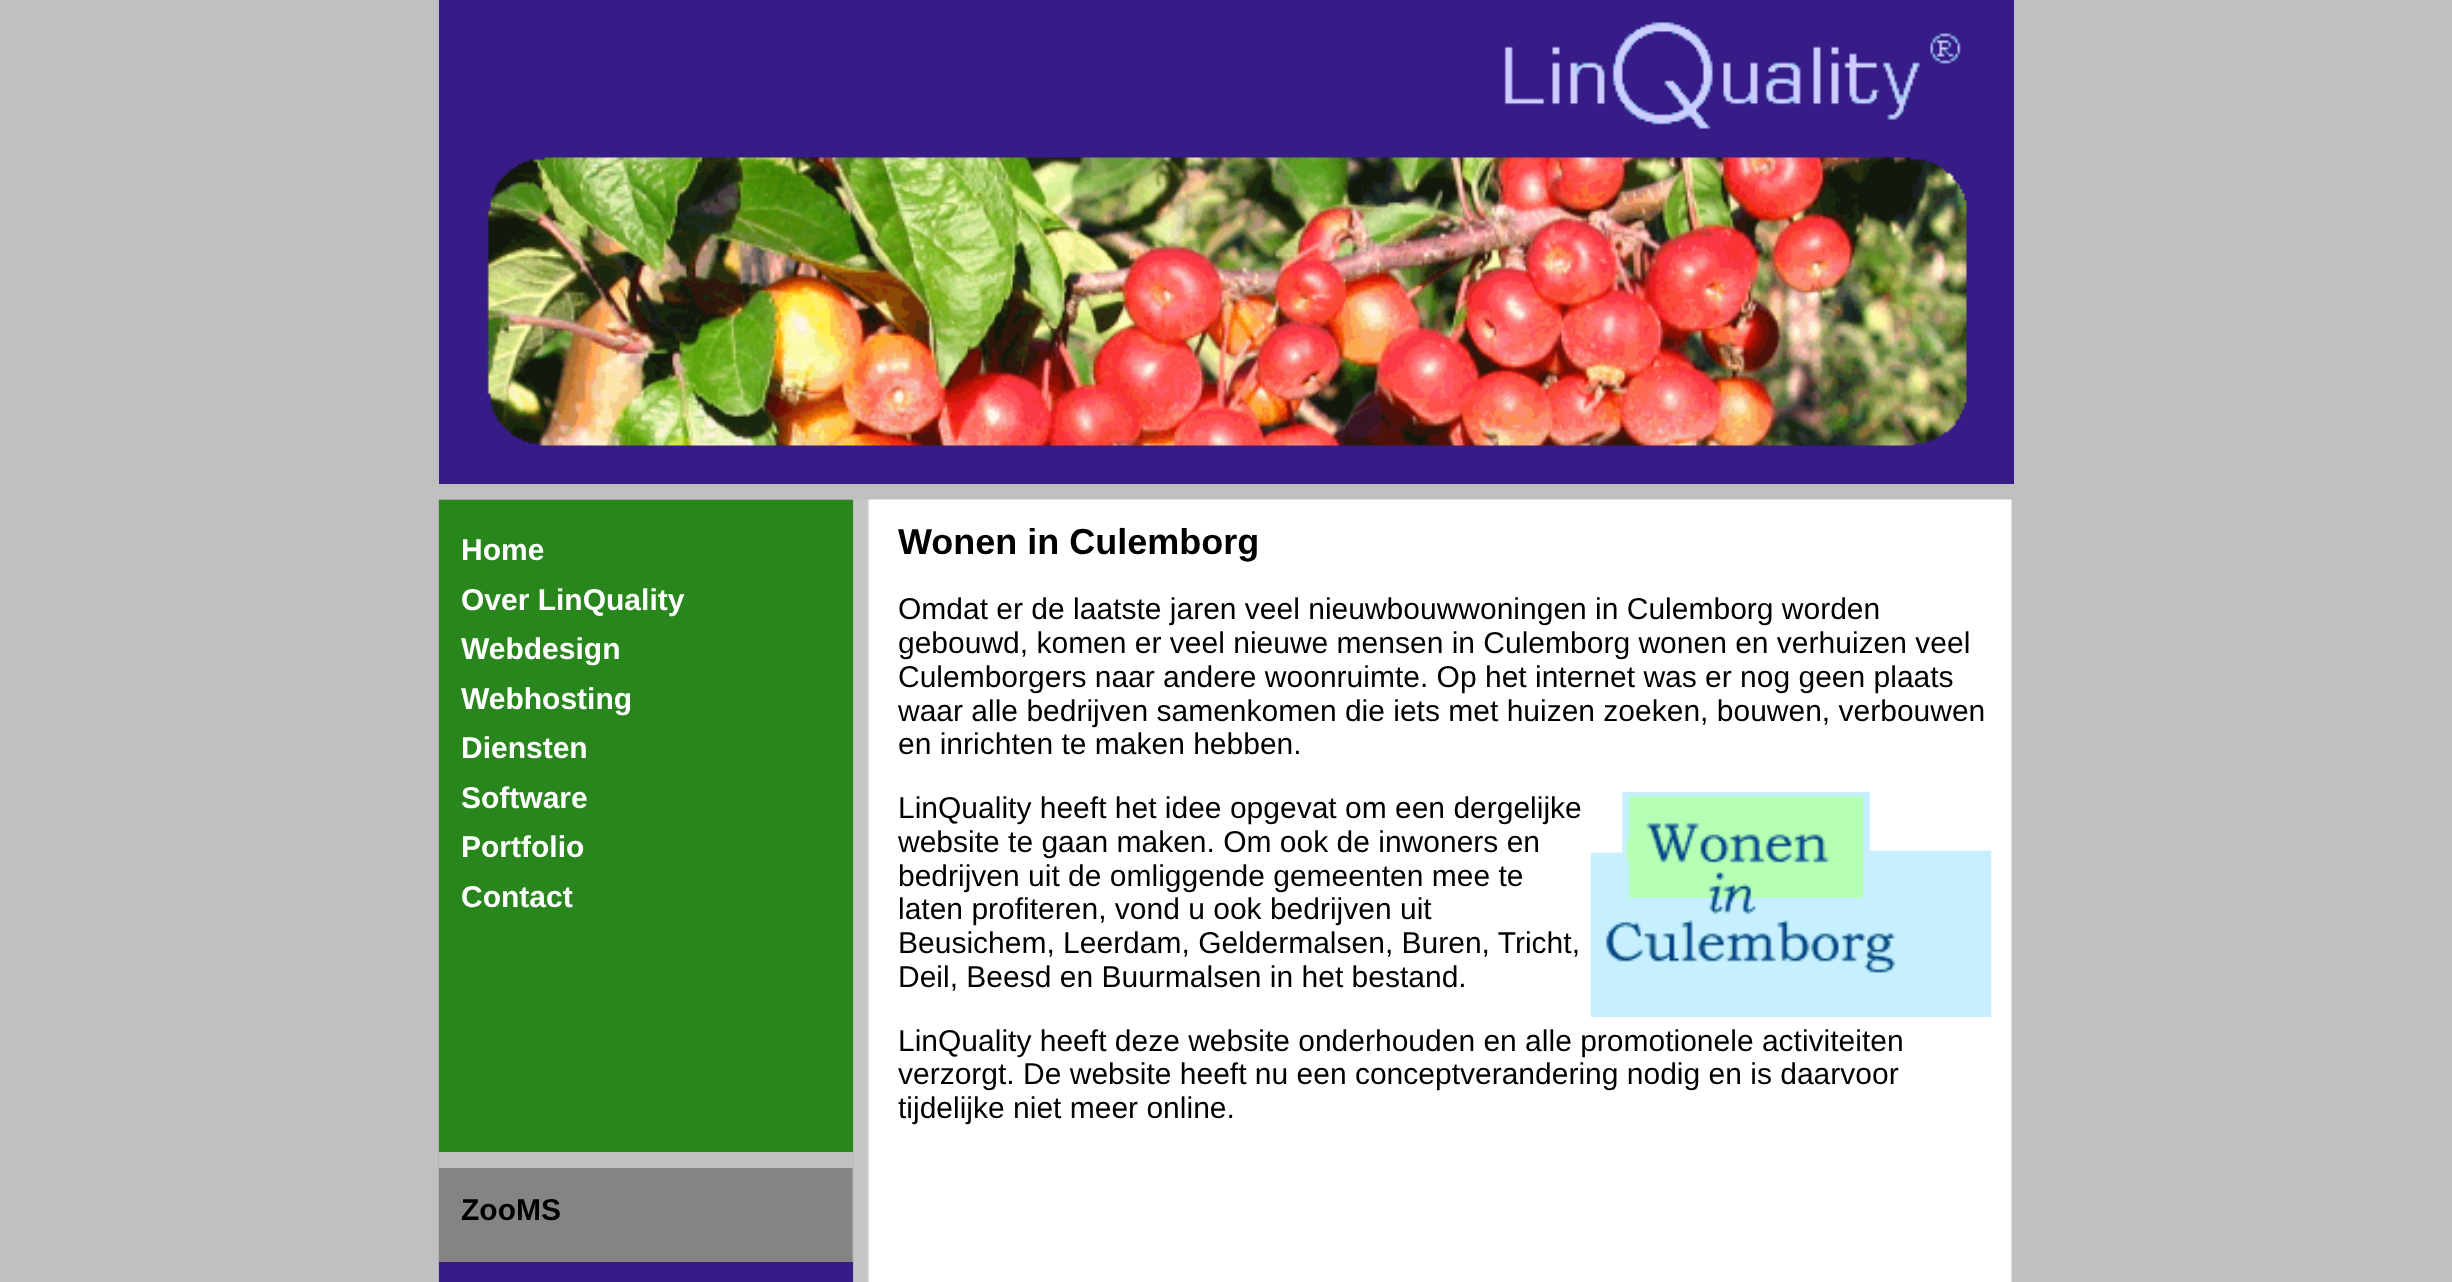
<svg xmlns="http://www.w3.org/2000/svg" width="2452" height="1282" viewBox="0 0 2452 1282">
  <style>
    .t1 { font: bold 30px Liberation Sans; fill: #fff; }
    .t2 { font: bold 30px Liberation Sans; fill: #000; }
    .t3 { font: bold 36px Liberation Sans; fill: #000; }
    .t4 { font: 30px Liberation Sans; fill: #000; }
  </style>
  <rect width="100%" height="100%" fill="#c0c0c0"/>
  <rect x="439" y="0" width="1575" height="484" fill="#371b87"/>
  <image x="1504" y="22" width="457" height="107" href="images/1.png"/>
  <image x="487" y="157" width="1480" height="289" href="images/2.png"/>
  <image x="438" y="499" width="1574" height="783" href="images/3.png"/>
  <rect x="439" y="500" width="414" height="652" fill="#28861c"/>
  <rect x="439" y="1152" width="414" height="16" fill="#c0c0c0"/>
  <text x="461" y="560" class="t1">Home</text>
  <text x="461" y="610" class="t1">Over LinQuality</text>
  <text x="461" y="659" class="t1">Webdesign</text>
  <text x="461" y="709" class="t1">Webhosting</text>
  <text x="461" y="758" class="t1">Diensten</text>
  <text x="461" y="808" class="t1">Software</text>
  <text x="461" y="857" class="t1">Portfolio</text>
  <text x="461" y="907" class="t1">Contact</text>
  <text x="461" y="1220" class="t2">ZooMS</text>
  <rect x="439" y="1262" width="414" height="20" fill="#371b87"/>
  <text x="898" y="554" class="t3">Wonen in Culemborg</text>
  <text x="898" y="619" class="t4">Omdat er de laatste jaren veel nieuwbouwwoningen in Culemborg worden</text>
  <text x="898" y="653" class="t4">gebouwd, komen er veel nieuwe mensen in Culemborg wonen en verhuizen veel</text>
  <text x="898" y="687" class="t4">Culemborgers naar andere woonruimte. Op het internet was er nog geen plaats</text>
  <text x="898" y="721" class="t4">waar alle bedrijven samenkomen die iets met huizen zoeken, bouwen, verbouwen</text>
  <text x="898" y="754" class="t4">en inrichten te maken hebben.</text>
  <text x="898" y="818" class="t4">LinQuality heeft het idee opgevat om een dergelijke</text>
  <image x="1590" y="792" width="402" height="225" href="images/4.png"/>
  <text x="898" y="852" class="t4">website te gaan maken. Om ook de inwoners en</text>
  <text x="898" y="886" class="t4">bedrijven uit de omliggende gemeenten mee te</text>
  <text x="898" y="919" class="t4">laten profiteren, vond u ook bedrijven uit</text>
  <text x="898" y="953" class="t4">Beusichem, Leerdam, Geldermalsen, Buren, Tricht,</text>
  <text x="898" y="987" class="t4">Deil, Beesd en Buurmalsen in het bestand.</text>
  <text x="898" y="1051" class="t4">LinQuality heeft deze website onderhouden en alle promotionele activiteiten</text>
  <text x="898" y="1084" class="t4">verzorgt. De website heeft nu een conceptverandering nodig en is daarvoor</text>
  <text x="898" y="1118" class="t4">tijdelijke niet meer online.</text>
</svg>
